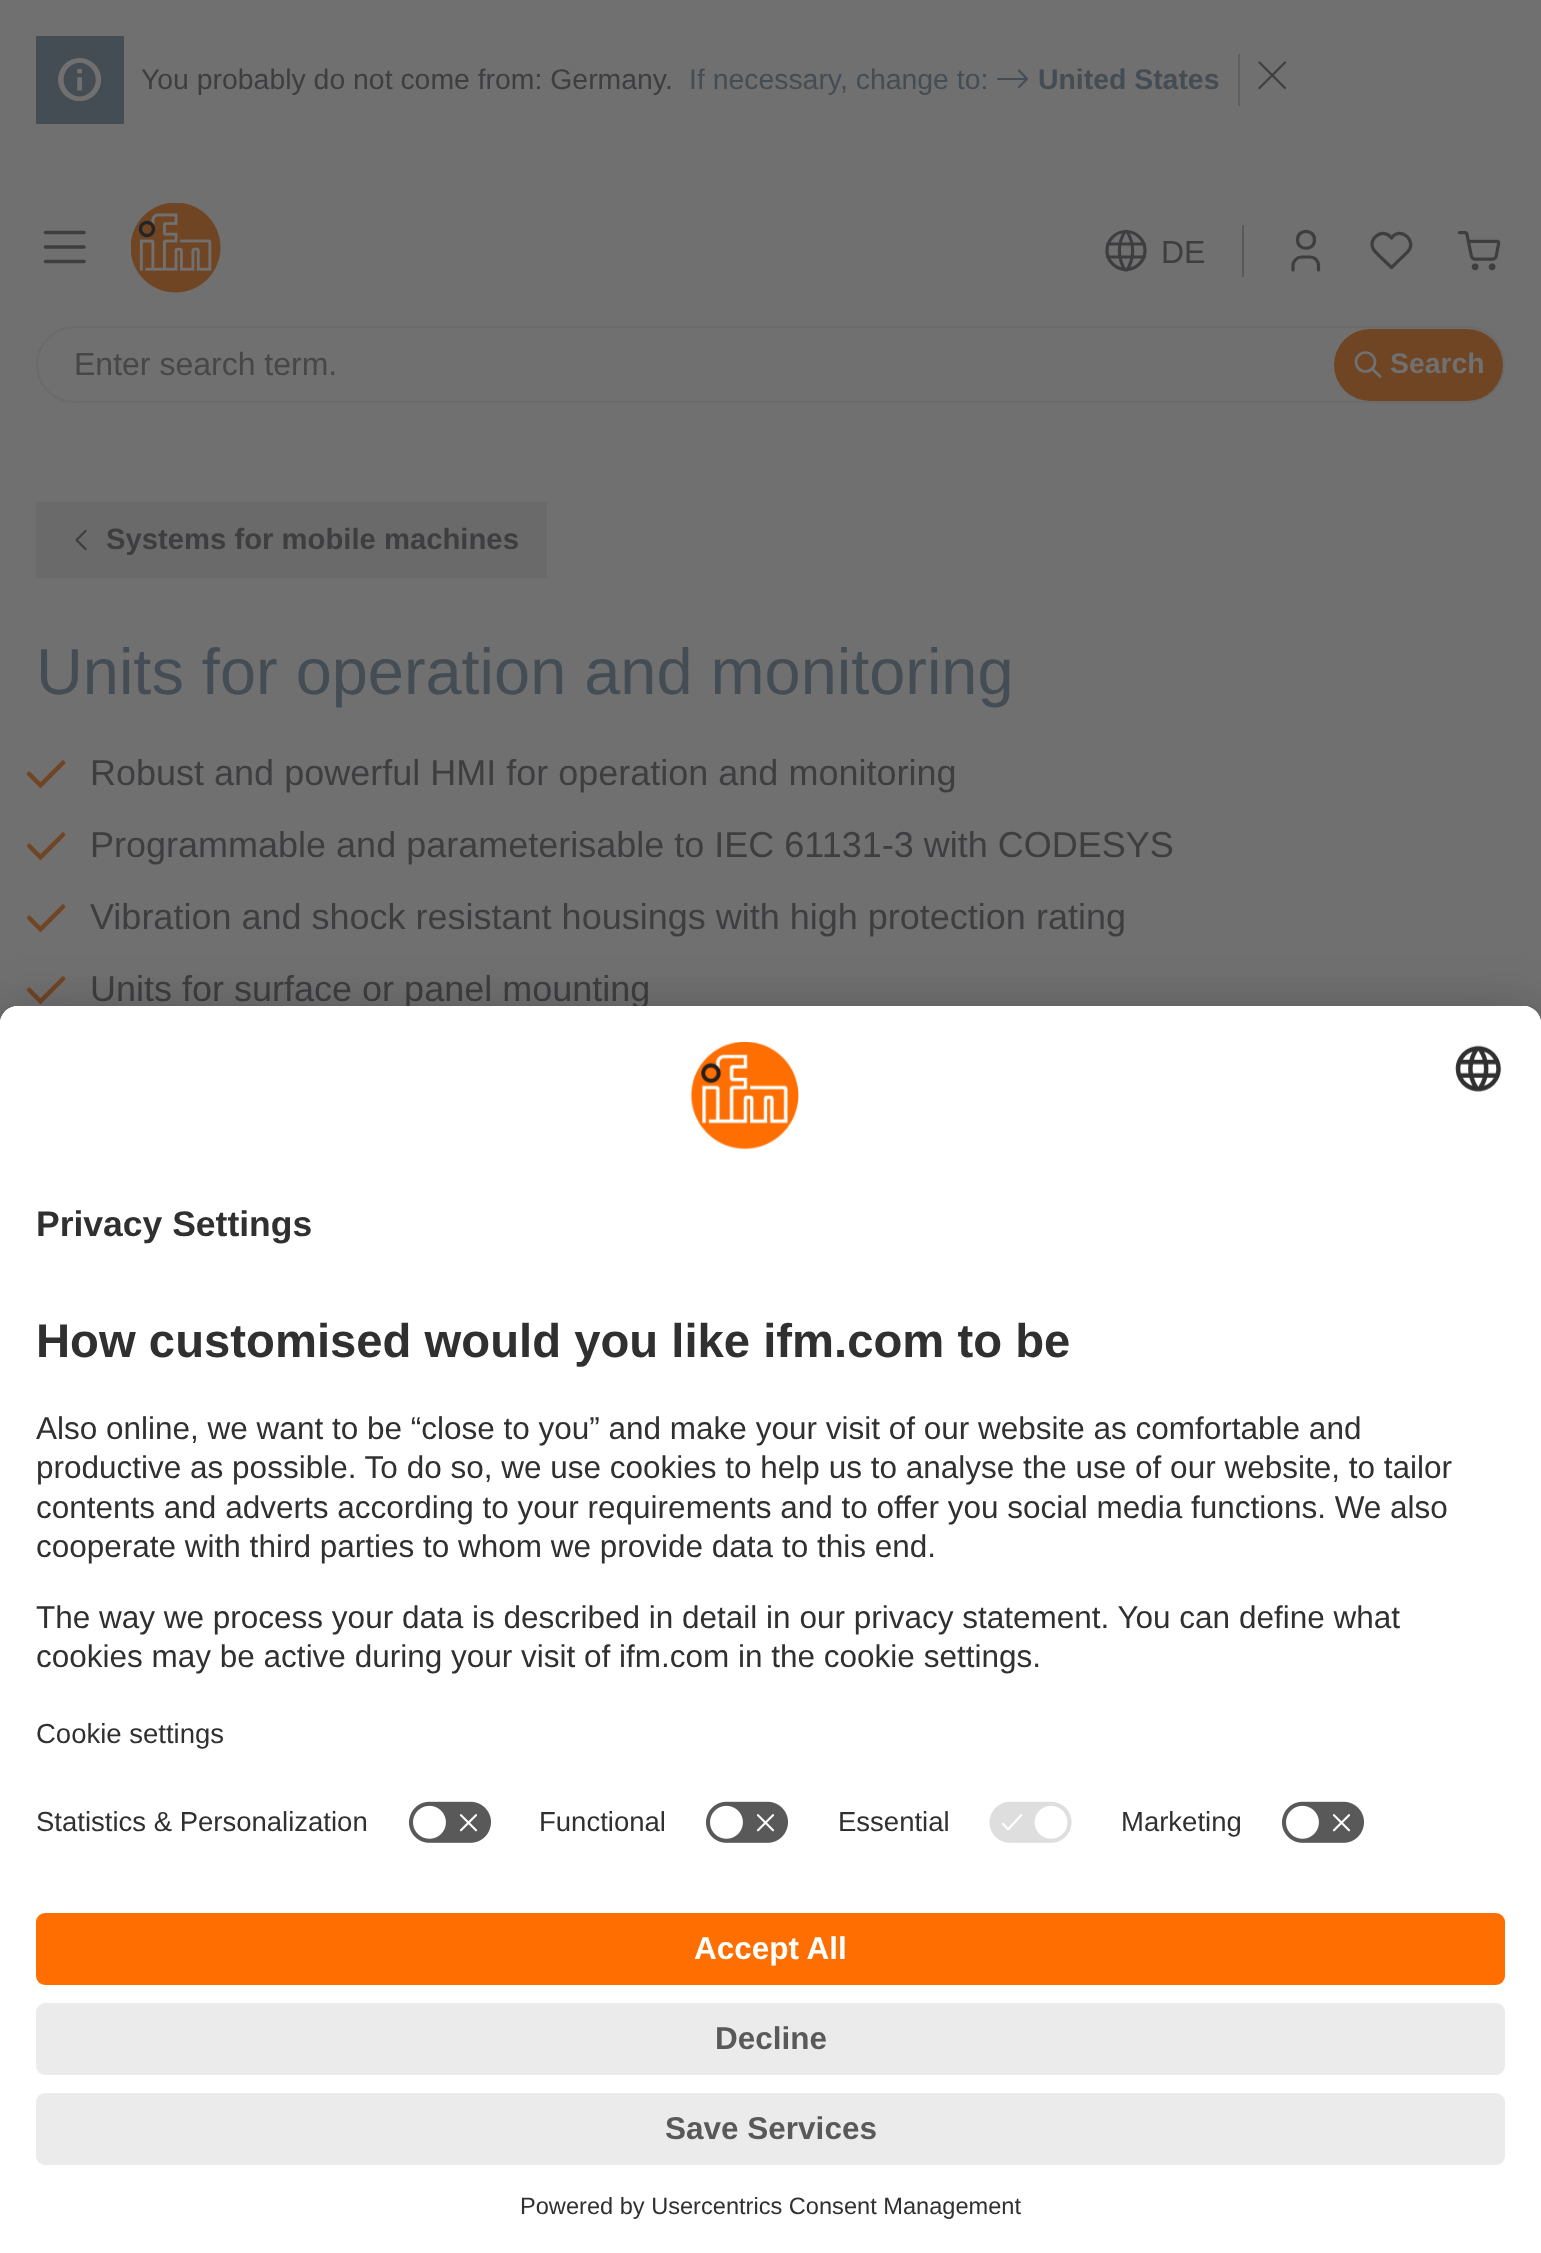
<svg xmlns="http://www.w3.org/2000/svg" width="1541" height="2253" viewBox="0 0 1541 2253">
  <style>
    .t1 { font: 28.4px Liberation Sans; fill: #3e3e41; }
    .t2 { font: 28.4px Liberation Sans; fill: #454d54; }
    .t3 { font: bold 28.4px Liberation Sans; fill: #454d54; }
    .t4 { font: 32px Liberation Sans; fill: #3e3e41; }
    .t5 { font: 32px Liberation Sans; fill: #474747; }
    .t6 { font: bold 28.4px Liberation Sans; fill: #707070; }
    .t7 { font: bold 29.25px Liberation Sans; fill: #3e3e41; }
    .t8 { font: 64.9px Liberation Sans; fill: #454d54; }
    .t9 { font: 36px Liberation Sans; fill: #3e3e41; }
    .t10 { font: bold 35.5px Liberation Sans; fill: #303030; }
    .t11 { font: bold 47.25px Liberation Sans; fill: #303030; }
    .t12 { font: 31.5px Liberation Sans; fill: #303030; }
    .t13 { font: 27.5px Liberation Sans; fill: #303030; }
    .t14 { font: bold 31.5px Liberation Sans; fill: #fff; }
    .t15 { font: bold 31.5px Liberation Sans; fill: #59595a; }
    .t16 { font: 23.6px Liberation Sans; fill: #303030; }
  </style>
  <rect width="100%" height="100%" fill="#707070"/>
  <rect x="36" y="36" width="88" height="88" fill="#454d54"/>
  <image x="58" y="58" width="43" height="43" href="images/1.png"/>
  <text x="141" y="89" class="t1">You probably do not come from: Germany.</text>
  <text x="689" y="89" class="t2">If necessary, change to:</text>
  <path d="M998 79H1027M1019 87L1027 79M1019 70.5L1027 79" fill="none" stroke="#454d54" stroke-width="2.1" stroke-linecap="round" stroke-linejoin="round"/>
  <text x="1038" y="89" class="t3">United States</text>
  <rect x="1238" y="54" width="2" height="52" fill="#606062"/>
  <path d="M1285 62.5L1259.5 88M1259.5 62.5L1285 88" fill="none" stroke="#3e3e41" stroke-width="2.1" stroke-linecap="round" stroke-linejoin="round"/>
  <path d="M45.5 232.5H84M45.5 247H84M45.5 261.5H84" fill="none" stroke="#3e3e41" stroke-width="3.6" stroke-linecap="round" stroke-linejoin="round"/>
  <image x="131" y="203" width="90" height="90" href="images/2.png"/>
  <rect x="1242" y="225" width="2" height="52" fill="#58595a"/>
  <circle cx="1126" cy="250.5" r="19" fill="none" stroke="#3e3e41" stroke-width="3.2"/>
  <path d="M1108 244H1144M1108 257H1144M1125 231.5C1117.5 243 1117.5 258 1125 270M1127 231.5C1134.5 243 1134.5 258 1127 270" fill="none" stroke="#3e3e41" stroke-width="3.2" stroke-linecap="round" stroke-linejoin="round"/>
  <text x="1161" y="263" class="t4">DE</text>
  <path d="M1297.5 240C1297.5 251 1314.5 251 1314.5 240C1314.5 228.5 1297.5 228.5 1297.5 240M1293 270V265.5C1293 261 1297 257 1301.5 257H1310C1315 257 1318.5 261 1318.5 265.5V270" fill="none" stroke="#3e3e41" stroke-width="3.2" stroke-linecap="round" stroke-linejoin="round"/>
  <path d="M1407.5 252L1391.5 267.5L1380.5 257C1378.5 255 1375.5 252.5 1373.5 249.5C1367 238 1383.5 227 1391.5 238C1400.5 225.5 1418 241.5 1407.5 252" fill="none" stroke="#3e3e41" stroke-width="3.2" stroke-linecap="round" stroke-linejoin="round"/>
  <image x="1457" y="231" width="44" height="40" href="images/3.png"/>
  <rect x="37" y="327" width="1467" height="75" rx="37.5" fill="none" stroke="#6b6b6b" stroke-width="2"/>
  <text x="74" y="375" class="t5">Enter search term.</text>
  <rect x="1334" y="329" width="169" height="72" rx="36" fill="#704524"/>
  <circle cx="1365.5" cy="362" r="9.5" fill="none" stroke="#707070" stroke-width="2.7"/>
  <path d="M1380 376.5L1372 368.5" fill="none" stroke="#707070" stroke-width="2.7" stroke-linecap="round" stroke-linejoin="round"/>
  <text x="1390" y="373" class="t6">Search</text>
  <rect x="36" y="502" width="511" height="76" fill="#6a6a6a"/>
  <path d="M85.5 531L76.5 540L85.5 549" fill="none" stroke="#3e3e41" stroke-width="2.2" stroke-linecap="round" stroke-linejoin="round"/>
  <text x="106" y="549" class="t7">Systems for mobile machines</text>
  <text x="36" y="694" class="t8">Units for operation and monitoring</text>
  <image x="26" y="760" width="40" height="29" href="images/4.png"/>
  <text x="90" y="785" class="t9">Robust and powerful HMI for operation and monitoring</text>
  <image x="27" y="832" width="39" height="29" href="images/5.png"/>
  <text x="90" y="857" class="t9">Programmable and parameterisable to IEC 61131-3 with CODESYS</text>
  <image x="27" y="904" width="39" height="29" href="images/5.png"/>
  <text x="90" y="929" class="t9">Vibration and shock resistant housings with high protection rating</text>
  <image x="27" y="976" width="39" height="29" href="images/5.png"/>
  <text x="90" y="1001" class="t9">Units for surface or panel mounting</text>
  <rect x="0" y="1051" width="1541" height="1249" rx="18" fill="#0000004d" filter="blur(31.5px)"/>
  <rect x="0" y="1017" width="1541" height="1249" rx="18" fill="#00000038" filter="blur(29px)"/>
  <path d="M18 1006H1523C1533 1006 1541 1014 1541 1024V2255H0V1024C0 1014 8 1006 18 1006Z" fill="#fff"/>
  <path d="M18 1006H1523C1533 1006 1541 1014 1541 1024V1886H0V1024C0 1014 8 1006 18 1006Z" fill="#fff"/>
  <path d="M18 1006H1523C1533 1006 1541 1014 1541 1024V1787H0V1024C0 1014 8 1006 18 1006Z" fill="#fff"/>
  <image x="690" y="1042" width="109" height="108" href="images/6.png"/>
  <image x="1455" y="1045" width="47" height="47" href="images/7.png"/>
  <text x="36" y="1236" class="t10">Privacy Settings</text>
  <text x="36" y="1357" class="t11">How customised would you like ifm.com to be</text>
  <text x="36" y="1439" class="t12">Also online, we want to be “close to you” and make your visit of our website as comfortable and</text>
  <text x="36" y="1478" class="t12">productive as possible. To do so, we use cookies to help us to analyse the use of our website, to tailor</text>
  <text x="36" y="1518" class="t12">contents and adverts according to your requirements and to offer you social media functions. We also</text>
  <text x="36" y="1557" class="t12">cooperate with third parties to whom we provide data to this end.</text>
  <text x="36" y="1628" class="t12">The way we process your data is described in detail in our privacy statement. You can define what</text>
  <text x="36" y="1667" class="t12">cookies may be active during your visit of ifm.com in the cookie settings.</text>
  <text x="36" y="1743" class="t13">Cookie settings</text>
  <text x="36" y="1831" class="t13">Statistics &amp; Personalization</text>
  <image x="408" y="1801" width="84" height="42" href="images/8.png"/>
  <text x="539" y="1831" class="t13">Functional</text>
  <image x="705" y="1801" width="84" height="42" href="images/8.png"/>
  <text x="838" y="1831" class="t13">Essential</text>
  <image x="989" y="1801" width="83" height="42" href="images/9.png"/>
  <text x="1121" y="1831" class="t13">Marketing</text>
  <image x="1281" y="1801" width="84" height="42" href="images/8.png"/>
  <rect x="36" y="1913" width="1469" height="72" rx="9" fill="#ff6e00"/>
  <text x="694" y="1959" class="t14">Accept All</text>
  <rect x="36" y="2003" width="1469" height="72" rx="9" fill="#ebebeb"/>
  <text x="715" y="2049" class="t15">Decline</text>
  <rect x="36" y="2093" width="1469" height="72" rx="9" fill="#ebebeb"/>
  <text x="665" y="2139" class="t15">Save Services</text>
  <text x="520" y="2214" class="t16">Powered by Usercentrics Consent Management</text>
</svg>
